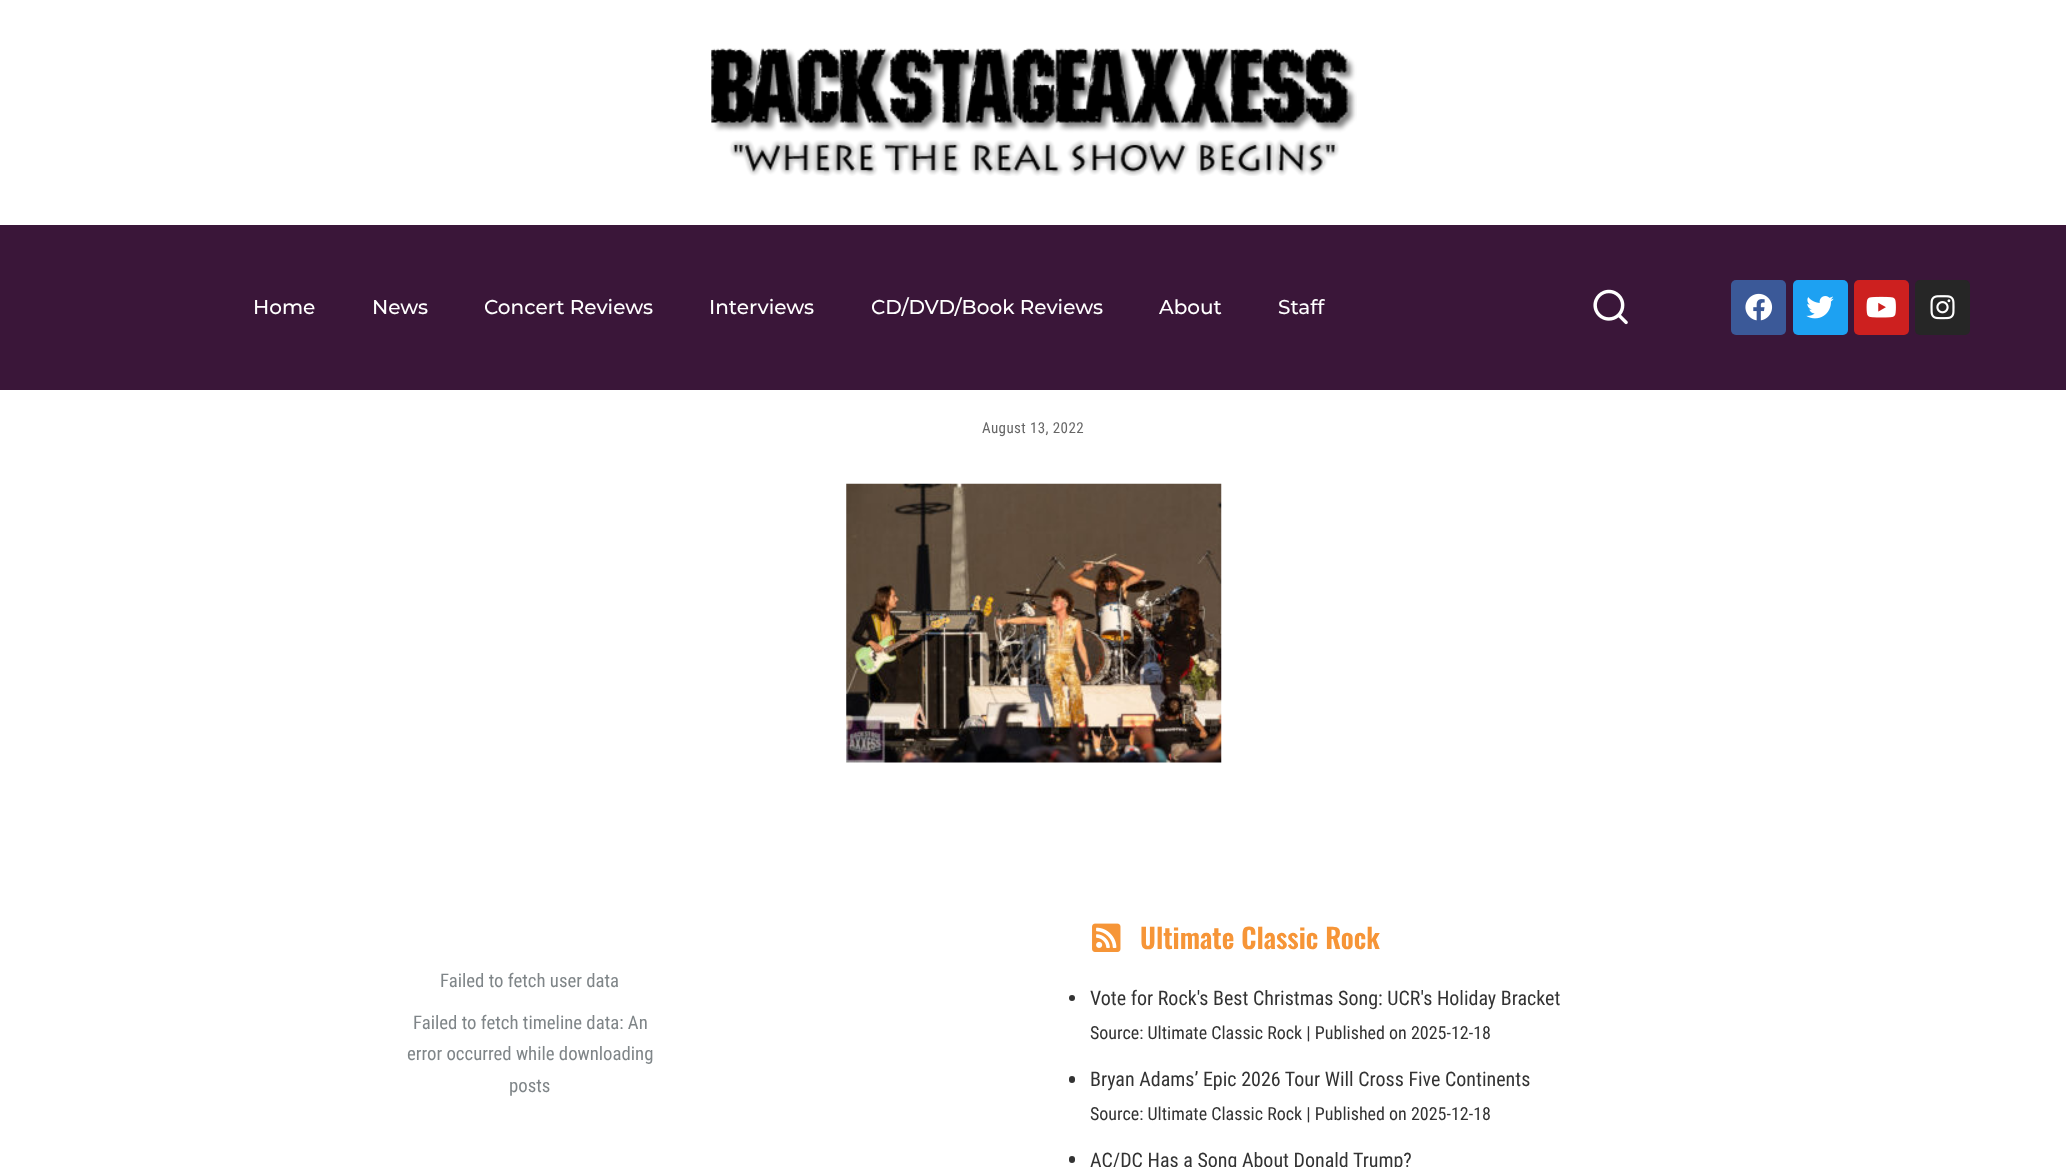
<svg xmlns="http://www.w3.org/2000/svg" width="2066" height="1167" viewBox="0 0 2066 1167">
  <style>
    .t1 { font: 500 20px Montserrat; fill: #fff; }
    .t2 { font: 15px Roboto Condensed; letter-spacing: 0.4px; fill: #666; }
    .t3 { font: 18.75px Roboto Condensed; fill: #7f8588; }
    .t4 { font: 600 27.5px Oswald; fill: #f69537; }
    .t5 { font: 20px Roboto Condensed; fill: #333; }
    .t6 { font: 18px Roboto Condensed; fill: #333; }
  </style>
  <rect width="100%" height="100%" fill="#fff"/>
  <image x="711" y="48" width="646" height="128" href="images/1.png"/>
  <rect x="0" y="225" width="2066" height="165" fill="#3a1639"/>
  <text x="253" y="314" class="t1">Home</text>
  <text x="372" y="314" class="t1">News</text>
  <text x="484" y="314" class="t1">Concert Reviews</text>
  <text x="709" y="314" class="t1">Interviews</text>
  <text x="871" y="314" class="t1">CD/DVD/Book Reviews</text>
  <text x="1159" y="314" class="t1">About</text>
  <text x="1278" y="314" class="t1">Staff</text>
  <image x="1593" y="289" width="35" height="36" href="images/2.png"/>
  <rect x="1731" y="280" width="55" height="55" rx="5" fill="#3b5998"/>
  <image x="1745" y="293" width="28" height="28" href="images/3.png"/>
  <rect x="1793" y="280" width="55" height="55" rx="5" fill="#1da1f2"/>
  <image x="1806" y="296" width="28" height="23" href="images/4.png"/>
  <rect x="1854" y="280" width="55" height="55" rx="5" fill="#cd201f"/>
  <image x="1866" y="296" width="30" height="22" href="images/5.png"/>
  <rect x="1915" y="280" width="55" height="55" rx="5" fill="#262626"/>
  <image x="1930" y="295" width="25" height="25" href="images/6.png"/>
  <text x="982" y="433" class="t2">August 13, 2022</text>
  <image x="846" y="483" width="376" height="280" href="images/7.png"/>
  <text x="440" y="987" class="t3">Failed to fetch user data</text>
  <text x="413" y="1029" class="t3">Failed to fetch timeline data: An</text>
  <text x="407" y="1060" class="t3">error occurred while downloading</text>
  <text x="509" y="1092" class="t3">posts</text>
  <image x="1092" y="923" width="29" height="29" href="images/8.png"/>
  <text x="1140" y="949" class="t4">Ultimate Classic Rock</text>
  <circle cx="1072" cy="998" r="3" fill="#333"/>
  <text x="1090" y="1005" class="t5">Vote for Rock's Best Christmas Song: UCR's Holiday Bracket</text>
  <text x="1090" y="1039" class="t6">Source: Ultimate Classic Rock | Published on 2025-12-18</text>
  <rect x="1069" y="1076" width="6" height="7" rx="3" fill="#333"/>
  <text x="1090" y="1086" class="t5">Bryan Adams’ Epic 2026 Tour Will Cross Five Continents</text>
  <text x="1090" y="1120" class="t6">Source: Ultimate Classic Rock | Published on 2025-12-18</text>
  <rect x="1069" y="1156" width="6" height="7" rx="3" fill="#333"/>
  <text x="1090" y="1167" class="t5">AC/DC Has a Song About Donald Trump?</text>
</svg>
